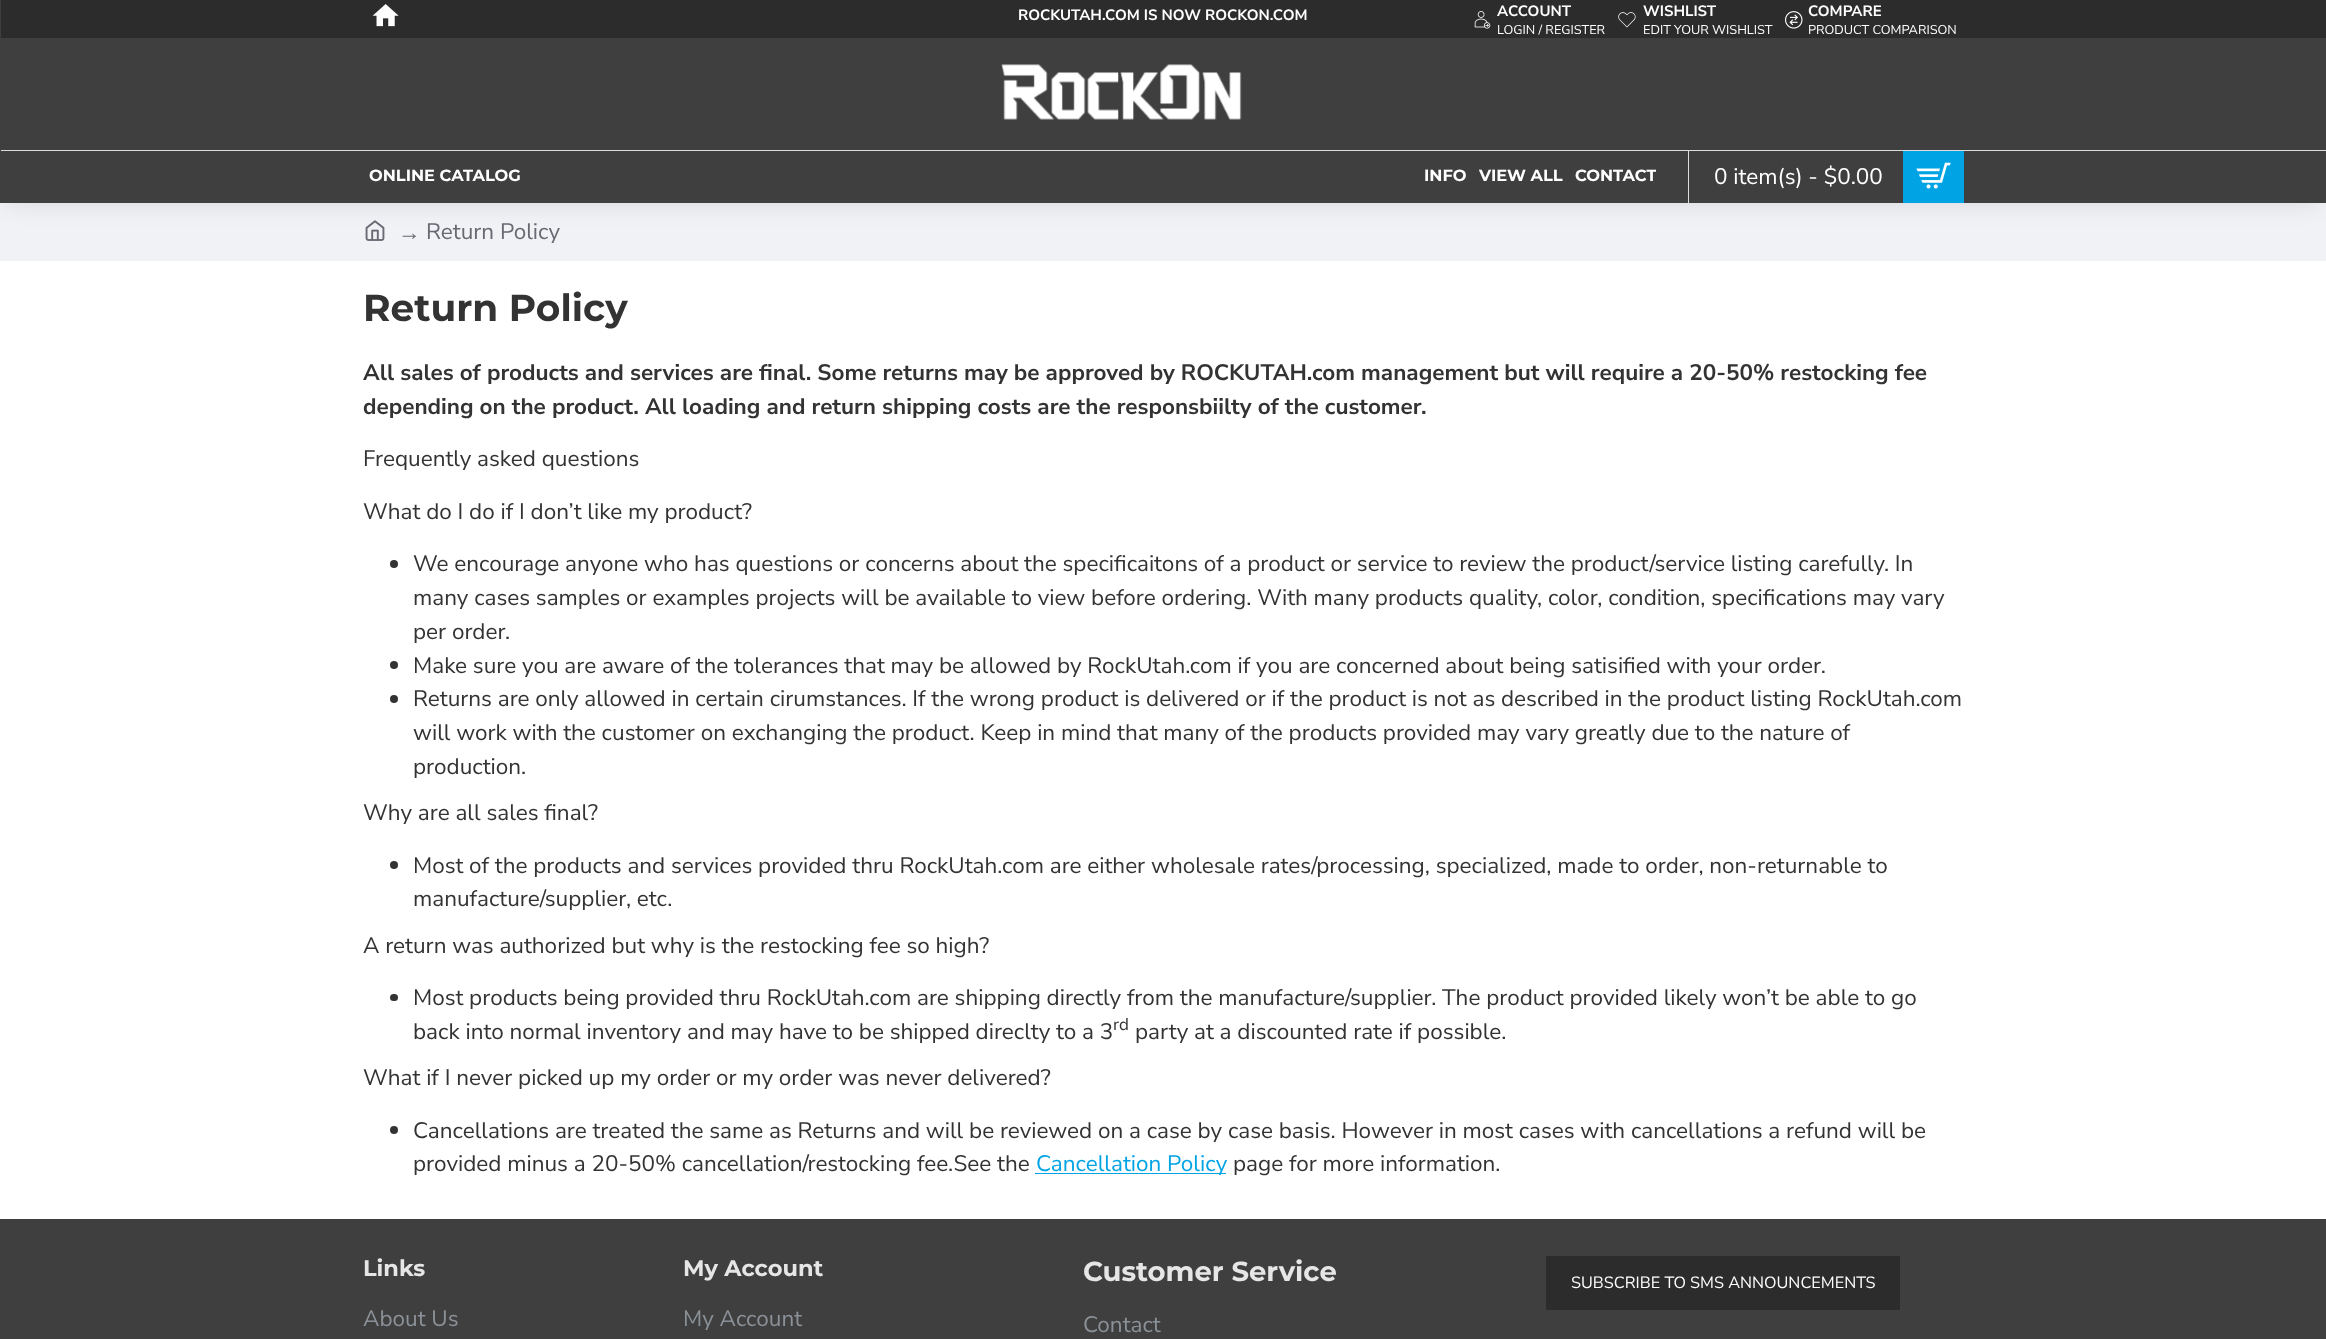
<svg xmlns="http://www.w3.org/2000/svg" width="2326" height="1339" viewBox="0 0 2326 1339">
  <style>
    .t1 { font: 200 15px Nunito Sans; fill: #fff; }
    .t2 { font: 200 12.75px 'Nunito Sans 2'; fill: #fff; }
    .t3 { font: 100 16.25px Montserrat; fill: #fff; }
    .t4 { font: 200 22.5px 'Nunito Sans 2'; fill: #fff; }
    .t5 { font: 22.5px Liberation Serif; fill: #696973; }
    .t6 { font: 200 22.5px 'Nunito Sans 2'; fill: #696973; }
    .t7 { font: 100 37.5px Montserrat; fill: #333; }
    .t8 { font: 200 22.5px Nunito Sans; fill: #333; }
    .t9 { font: 200 22.5px 'Nunito Sans 2'; fill: #333; }
    .t10 { font: 200 17px 'Nunito Sans 2'; fill: #333; }
    .t11 { font: 200 22.5px 'Nunito Sans 2'; fill: #00a4e4; }
    .t12 { font: 100 22.5px Montserrat; fill: #e6e6e6; }
    .t13 { font: 200 22.5px 'Nunito Sans 2'; fill: #8b9198; }
    .t14 { font: 100 27.5px Montserrat; fill: #e6e6e6; }
    .t15 { font: 200 16.25px 'Nunito Sans 2'; fill: #fff; }
  </style>
  <defs>
    <clipPath id="clip1"><rect x="1575" y="164" width="81" height="25"/></clipPath>
  </defs>
  <rect width="100%" height="100%" fill="#fff"/>
  <rect x="0" y="203" width="2326" height="58" fill="#f0f2f5"/>
  <image x="365" y="220" width="20" height="21" href="images/7.png"/>
  <rect x="6" y="6" width="2314" height="197" fill="#0000001a" filter="blur(12.5px)"/>
  <rect x="0" y="0" width="2326" height="203" fill="#3f3f3f"/>
  <rect x="1" y="0" width="2325" height="38" fill="#2c2c2c"/>
  <image x="372" y="4" width="27" height="23" href="images/1.png"/>
  <text x="1018" y="20" class="t1">ROCKUTAH.COM IS NOW ROCKON.COM</text>
  <image x="1474" y="11" width="17" height="18" href="images/2.png"/>
  <text x="1497" y="16" class="t1">ACCOUNT</text>
  <text x="1497" y="34" class="t2">LOGIN / REGISTER</text>
  <image x="1618" y="12" width="18" height="16" href="images/3.png"/>
  <text x="1643" y="16" class="t1">WISHLIST</text>
  <text x="1643" y="34" class="t2">EDIT YOUR WISHLIST</text>
  <image x="1785" y="11" width="18" height="18" href="images/4.png"/>
  <text x="1808" y="16" class="t1">COMPARE</text>
  <text x="1808" y="34" class="t2">PRODUCT COMPARISON</text>
  <image x="1001" y="64" width="241" height="56" href="images/5.png"/>
  <rect x="1" y="150" width="2325" height="1" fill="#ddd"/>
  <text x="369" y="181" class="t3">ONLINE CATALOG</text>
  <text x="1424" y="181" class="t3">INFO</text>
  <text x="1479" y="181" class="t3">VIEW ALL</text>
  <g clip-path="url(#clip1)">
    <text x="1575" y="181" class="t3">CONTACT</text>
  </g>
  <rect x="1688" y="150" width="1" height="53" fill="#ddd"/>
  <text x="1714" y="184" class="t4">0 item(s) - $0.00</text>
  <rect x="1903" y="151" width="61" height="52" fill="#00a4e4"/>
  <image x="1916" y="162" width="35" height="27" href="images/6.png"/>
  <text x="398" y="240" class="t5">→</text>
  <text x="426" y="239" class="t6">Return Policy</text>
  <text x="363" y="321" class="t7">Return Policy</text>
  <text x="363" y="380" class="t8">All sales of products and services are final. Some returns may be approved by ROCKUTAH.com management but will require a 20-50% restocking fee</text>
  <text x="363" y="414" class="t8">depending on the product. All loading and return shipping costs are the responsbiilty of the customer.</text>
  <text x="363" y="466" class="t9">Frequently asked questions</text>
  <text x="363" y="519" class="t9">What do I do if I don’t like my product?</text>
  <circle cx="394" cy="564" r="4" fill="#333"/>
  <text x="413" y="571" class="t9">We encourage anyone who has questions or concerns about the specificaitons of a product or service to review the product/service listing carefully. In</text>
  <text x="413" y="605" class="t9">many cases samples or examples projects will be available to view before ordering. With many products quality, color, condition, specifications may vary</text>
  <text x="413" y="639" class="t9">per order.</text>
  <circle cx="394" cy="665" r="4" fill="#333"/>
  <text x="413" y="673" class="t9">Make sure you are aware of the tolerances that may be allowed by RockUtah.com if you are concerned about being satisified with your order.</text>
  <circle cx="394" cy="699" r="4" fill="#333"/>
  <text x="413" y="706" class="t9">Returns are only allowed in certain cirumstances. If the wrong product is delivered or if the product is not as described in the product listing RockUtah.com</text>
  <text x="413" y="740" class="t9">will work with the customer on exchanging the product. Keep in mind that many of the products provided may vary greatly due to the nature of</text>
  <text x="413" y="774" class="t9">production.</text>
  <text x="363" y="820" class="t9">Why are all sales final?</text>
  <circle cx="394" cy="865" r="4" fill="#333"/>
  <text x="413" y="873" class="t9">Most of the products and services provided thru RockUtah.com are either wholesale rates/processing, specialized, made to order, non-returnable to</text>
  <text x="413" y="906" class="t9">manufacture/supplier, etc.</text>
  <text x="363" y="953" class="t9">A return was authorized but why is the restocking fee so high?</text>
  <rect x="390" y="994" width="8" height="7" rx="3.5" fill="#333"/>
  <text x="413" y="1005" class="t9">Most products being provided thru RockUtah.com are shipping directly from the manufacture/supplier. The product provided likely won’t be able to go</text>
  <text x="413" y="1039" class="t9">back into normal inventory and may have to be shipped direclty to a 3</text>
  <text x="1113" y="1030" class="t10">rd</text>
  <text x="1135" y="1039" class="t9">party at a discounted rate if possible.</text>
  <text x="363" y="1085" class="t9">What if I never picked up my order or my order was never delivered?</text>
  <circle cx="394" cy="1130" r="4" fill="#333"/>
  <text x="413" y="1138" class="t9">Cancellations are treated the same as Returns and will be reviewed on a case by case basis. However in most cases with cancellations a refund will be</text>
  <text x="413" y="1171" class="t9">provided minus a 20-50% cancellation/restocking fee.See the</text>
  <rect x="1035" y="1173" width="191" height="1" fill="#00a4e4"/>
  <text x="1036" y="1171" class="t11">Cancellation Policy</text>
  <text x="1233" y="1171" class="t9">page for more information.</text>
  <rect x="0" y="1219" width="2326" height="120" fill="#3f3f3f"/>
  <text x="363" y="1276" class="t12">Links</text>
  <text x="363" y="1326" class="t13">About Us</text>
  <text x="683" y="1276" class="t12">My Account</text>
  <text x="683" y="1326" class="t13">My Account</text>
  <text x="1083" y="1281" class="t14">Customer Service</text>
  <text x="1083" y="1332" class="t13">Contact</text>
  <rect x="1546" y="1256" width="354" height="54" fill="#2c2c2c"/>
  <text x="1571" y="1288" class="t15">SUBSCRIBE TO SMS ANNOUNCEMENTS</text>
</svg>
